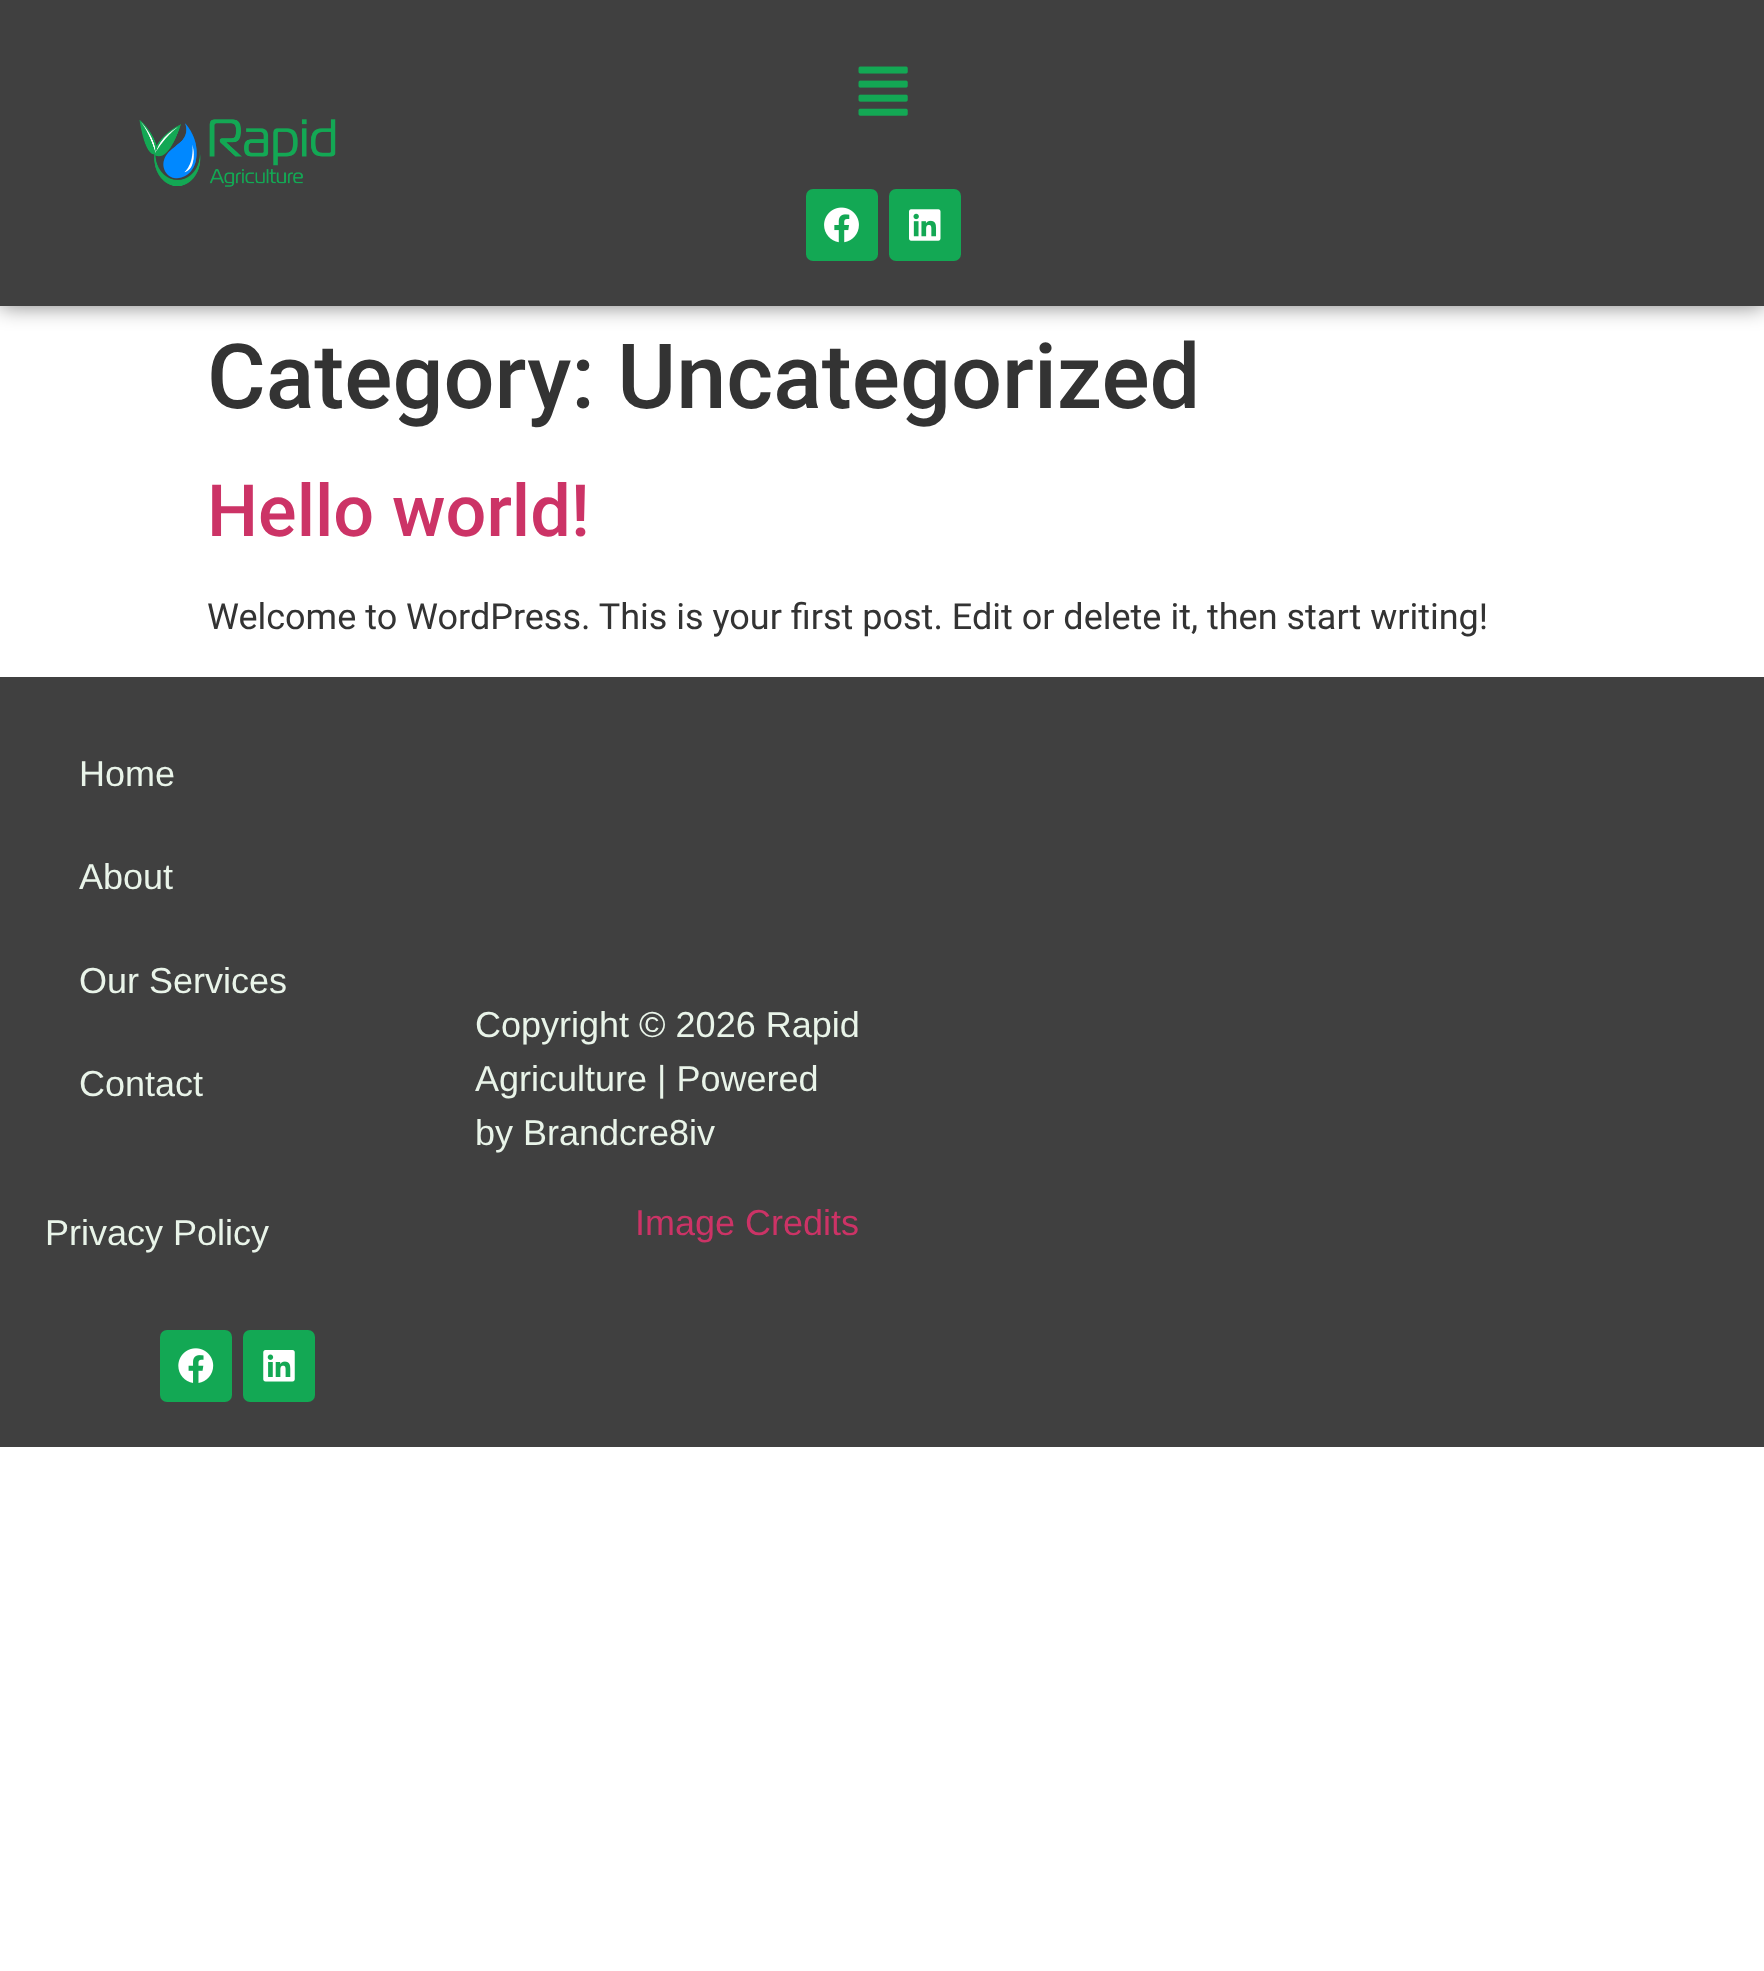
<svg xmlns="http://www.w3.org/2000/svg" width="1764" height="1971" viewBox="0 0 1764 1971">
  <style>
    .t1 { font: 500 90px Roboto; fill: #333; }
    .t2 { font: 500 72px Roboto; fill: #c36; }
    .t3 { font: 36px Roboto; fill: #333; }
    .t4 { font: 36px Liberation Sans; fill: #e9f4e9; }
    .t5 { font: 36px Liberation Sans; fill: #c36; }
  </style>
  <rect width="100%" height="100%" fill="#fff"/>
  <rect x="0" y="0" width="1764" height="306" fill="#00000080" filter="blur(11px)"/>
  <rect x="0" y="0" width="1764" height="306" fill="#404040"/>
  <image x="139" y="119" width="197" height="68" href="images/1.png"/>
  <image x="858" y="66" width="50" height="50" href="images/2.png"/>
  <rect x="806" y="189" width="72" height="72" rx="7" fill="#13a854"/>
  <image x="824" y="207" width="35" height="36" href="images/3.png"/>
  <rect x="889" y="189" width="72" height="72" rx="7" fill="#13a854"/>
  <image x="909" y="209" width="32" height="32" href="images/4.png"/>
  <text x="207" y="408" class="t1">Category: Uncategorized</text>
  <text x="207" y="536" class="t2">Hello world!</text>
  <text x="207" y="629" class="t3">Welcome to WordPress. This is your first post. Edit or delete it, then start writing!</text>
  <rect x="0" y="677" width="1764" height="770" fill="#404040"/>
  <text x="79" y="786" class="t4">Home</text>
  <text x="79" y="889" class="t4">About</text>
  <text x="79" y="993" class="t4">Our Services</text>
  <text x="79" y="1096" class="t4">Contact</text>
  <text x="45" y="1245" class="t4">Privacy Policy</text>
  <rect x="160" y="1330" width="72" height="72" rx="7" fill="#13a854"/>
  <image x="178" y="1348" width="36" height="35" href="images/5.png"/>
  <rect x="243" y="1330" width="72" height="72" rx="7" fill="#13a854"/>
  <image x="263" y="1350" width="32" height="32" href="images/6.png"/>
  <text x="475" y="1037" class="t4">Copyright © 2026 Rapid</text>
  <text x="475" y="1091" class="t4">Agriculture | Powered</text>
  <text x="475" y="1145" class="t4">by Brandcre8iv</text>
  <text x="635" y="1235" class="t5">Image Credits</text>
</svg>
